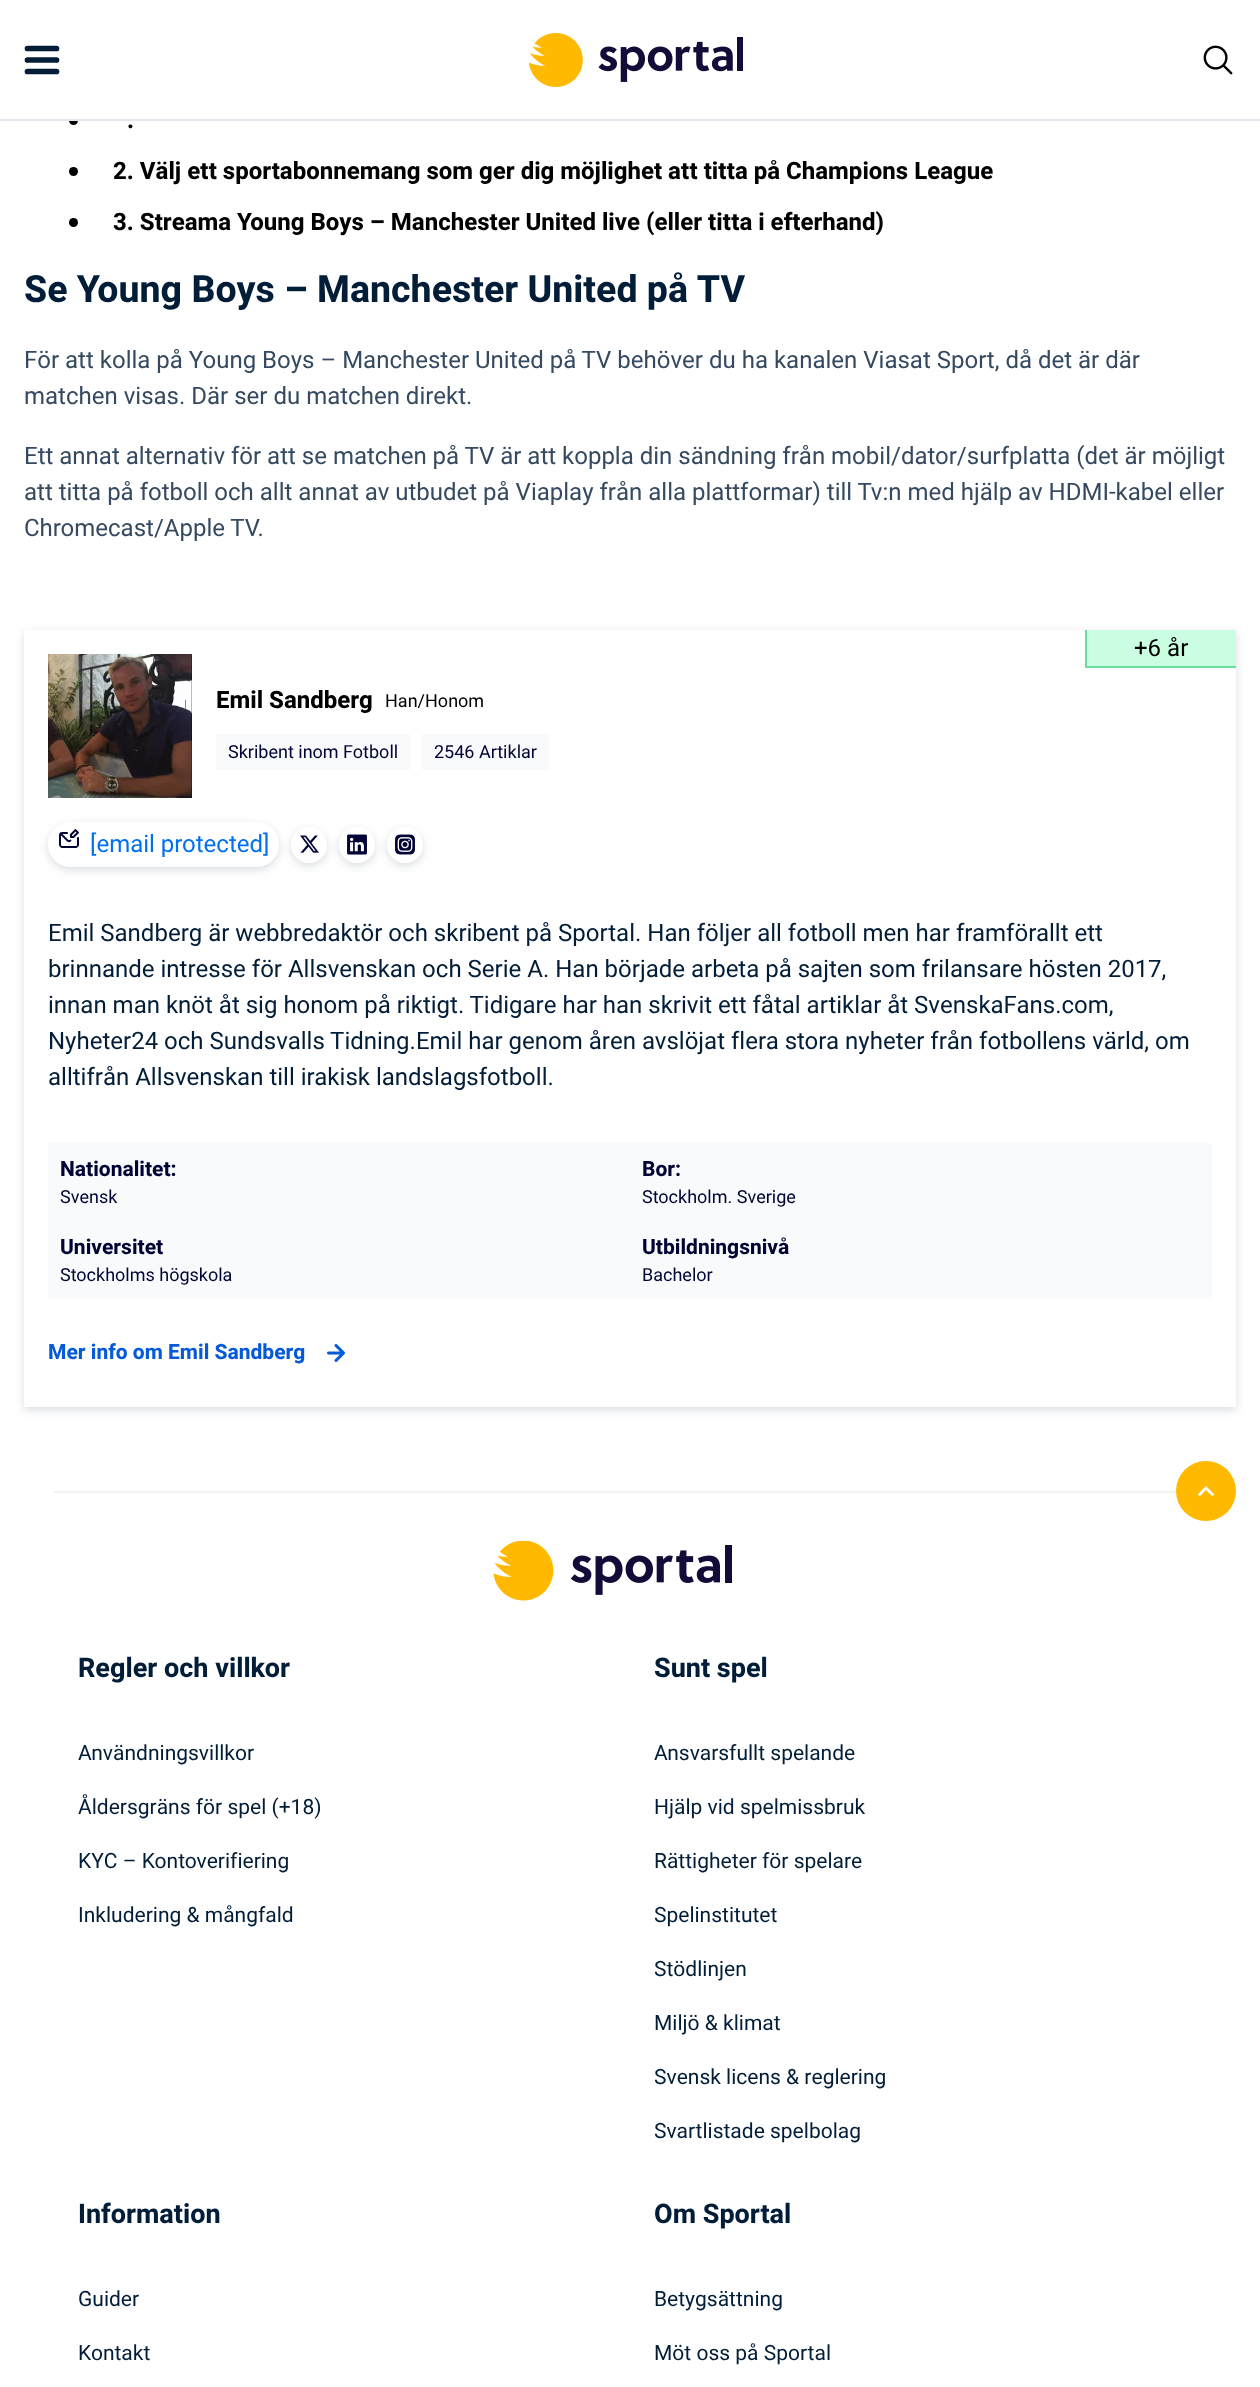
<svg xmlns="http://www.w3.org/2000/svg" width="1260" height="2387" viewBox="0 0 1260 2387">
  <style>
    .t1 { font: bold 24px Heebo; fill: #000; }
    .t2 { font: bold 37.5px Heebo; fill: #021d38; }
    .t3 { font: 24px Heebo; fill: #354a60; }
    .t4 { font: 24px Heebo; fill: #000; }
    .t5 { font: 18px Heebo; fill: #000; }
    .t6 { font: 18px Heebo; fill: #000333; }
    .t7 { font: 24px Heebo; fill: #0071f0; }
    .t8 { font: 24px Heebo; fill: #021d38; }
    .t9 { font: bold 21px Heebo; fill: #000333; }
    .t10 { font: bold 21px Heebo; fill: #055ada; }
    .t11 { font: bold 27px Heebo; fill: #021d38; }
    .t12 { font: 21px Heebo; fill: #021d38; }
  </style>
  <defs>
    <clipPath id="clip1"><path d="M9 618H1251V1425H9ZM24 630H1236V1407H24Z" clip-rule="evenodd"/></clipPath>
    <clipPath id="clip2"><path d="M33 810H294V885H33ZM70.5 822H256.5C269 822 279 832 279 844.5C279 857 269 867 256.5 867H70.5C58 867 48 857 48 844.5C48 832 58 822 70.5 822Z" clip-rule="evenodd"/></clipPath>
    <clipPath id="clip3"><path d="M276 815H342V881H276ZM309 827C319 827 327 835 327 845C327 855 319 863 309 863C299 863 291 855 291 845C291 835 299 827 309 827Z" clip-rule="evenodd"/></clipPath>
    <clipPath id="clip4"><path d="M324 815H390V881H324ZM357 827C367 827 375 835 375 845C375 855 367 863 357 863C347 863 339 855 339 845C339 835 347 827 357 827Z" clip-rule="evenodd"/></clipPath>
    <clipPath id="clip5"><path d="M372 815H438V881H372ZM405 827C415 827 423 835 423 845C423 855 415 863 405 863C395 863 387 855 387 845C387 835 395 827 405 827Z" clip-rule="evenodd"/></clipPath>
  </defs>
  <rect width="100%" height="100%" fill="#fff"/>
  <circle cx="73.5" cy="120.5" r="4.5" fill="#000"/>
  <rect x="69" y="116" width="9" height="3" fill="#fff"/>
  <rect x="0" y="119" width="1260" height="2" fill="#e3e6ef"/>
  <path d="M27.5 71.5H56.5M27.5 60H56.5M27.5 48.5H56.5" fill="none" stroke="#021d38" stroke-width="5.7" stroke-linecap="round"/>
  <image x="529" y="33" width="214" height="54" href="images/1.png"/>
  <image x="1203" y="45" width="30" height="30" href="images/2.png"/>
  <text x="127" y="128" class="t1">.</text>
  <circle cx="73.5" cy="171.5" r="4.5" fill="#000"/>
  <text x="113" y="179" class="t1">2. Välj ett sportabonnemang som ger dig möjlighet att titta på Champions League</text>
  <circle cx="73.5" cy="222.5" r="4.5" fill="#000"/>
  <text x="113" y="230" class="t1">3. Streama Young Boys – Manchester United live (eller titta i efterhand)</text>
  <text x="24" y="302" class="t2">Se Young Boys – Manchester United på TV</text>
  <text x="24" y="368" class="t3">För att kolla på Young Boys – Manchester United på TV behöver du ha kanalen Viasat Sport, då det är där</text>
  <text x="24" y="404" class="t3">matchen visas. Där ser du matchen direkt.</text>
  <text x="24" y="464" class="t3">Ett annat alternativ för att se matchen på TV är att koppla din sändning från mobil/dator/surfplatta (det är möjligt</text>
  <text x="24" y="500" class="t3">att titta på fotboll och allt annat av utbudet på Viaplay från alla plattformar) till Tv:n med hjälp av HDMI-kabel eller</text>
  <text x="24" y="536" class="t3">Chromecast/Apple TV.</text>
  <g clip-path="url(#clip1)">
    <rect x="24" y="633" width="1212" height="777" fill="#021d3826" filter="blur(4.5px)"/>
  </g>
  <rect x="1087" y="630" width="149" height="36" fill="#caffe2"/>
  <rect x="1085" y="666" width="151" height="2" fill="#69dc9e"/>
  <rect x="1085" y="630" width="2" height="38" fill="#69dc9e"/>
  <text x="1134" y="656" class="t4">+6 år</text>
  <image x="48" y="654" width="144" height="144" href="images/3.png"/>
  <text x="216" y="708" class="t1">Emil Sandberg</text>
  <text x="385" y="707" class="t5">Han/Honom</text>
  <rect x="216" y="734" width="194" height="36" fill="#f8fafc"/>
  <text x="228" y="758" class="t6">Skribent inom Fotboll</text>
  <rect x="422" y="734" width="127" height="36" fill="#f8fafc"/>
  <text x="434" y="758" class="t6">2546 Artiklar</text>
  <g clip-path="url(#clip2)">
    <rect x="48" y="825" width="231" height="45" rx="22.5" fill="#021d3826" filter="blur(4.5px)"/>
  </g>
  <image x="59" y="829" width="20" height="19" href="images/4.png"/>
  <text x="90" y="852" class="t7">[email protected]</text>
  <g clip-path="url(#clip3)">
    <rect x="291" y="830" width="36" height="36" rx="18" fill="#021d3826" filter="blur(4.5px)"/>
  </g>
  <image x="292" y="835" width="34" height="28" href="images/5.png"/>
  <g clip-path="url(#clip4)">
    <rect x="339" y="830" width="36" height="36" rx="18" fill="#021d3826" filter="blur(4.5px)"/>
  </g>
  <image x="340" y="834" width="34" height="29" href="images/6.png"/>
  <g clip-path="url(#clip5)">
    <rect x="387" y="830" width="36" height="36" rx="18" fill="#021d3826" filter="blur(4.5px)"/>
  </g>
  <image x="388" y="834" width="34" height="29" href="images/7.png"/>
  <text x="48" y="941" class="t8">Emil Sandberg är webbredaktör och skribent på Sportal. Han följer all fotboll men har framförallt ett</text>
  <text x="48" y="977" class="t8">brinnande intresse för Allsvenskan och Serie A. Han började arbeta på sajten som frilansare hösten 2017,</text>
  <text x="48" y="1013" class="t8">innan man knöt åt sig honom på riktigt. Tidigare har han skrivit ett fåtal artiklar åt SvenskaFans.com,</text>
  <text x="48" y="1049" class="t8">Nyheter24 och Sundsvalls Tidning.Emil har genom åren avslöjat flera stora nyheter från fotbollens värld, om</text>
  <text x="48" y="1085" class="t8">alltifrån Allsvenskan till irakisk landslagsfotboll.</text>
  <rect x="48" y="1143" width="1164" height="156" fill="#f8fafc"/>
  <text x="60" y="1176" class="t9">Nationalitet:</text>
  <text x="60" y="1203" class="t6">Svensk</text>
  <text x="642" y="1176" class="t9">Bor:</text>
  <text x="642" y="1203" class="t6">Stockholm. Sverige</text>
  <text x="60" y="1254" class="t9">Universitet</text>
  <text x="60" y="1281" class="t6">Stockholms högskola</text>
  <text x="642" y="1254" class="t9">Utbildningsnivå</text>
  <text x="642" y="1281" class="t6">Bachelor</text>
  <text x="48" y="1359" class="t10">Mer info om Emil Sandberg</text>
  <image x="327" y="1344" width="18" height="18" href="images/8.png"/>
  <rect x="54" y="1491" width="1123" height="2" fill="#f1f1f1"/>
  <circle cx="1206" cy="1491" r="30" fill="#ffb900"/>
  <path d="M1212 1496L1206 1490L1200 1496L1197.5 1494.5L1206 1486L1214.5 1494.5Z" fill="#fff"/>
  <image x="493" y="1541" width="239" height="60" href="images/9.png"/>
  <text x="78" y="1677" class="t11">Regler och villkor</text>
  <text x="78" y="1760" class="t12">Användningsvillkor</text>
  <text x="78" y="1814" class="t12">Åldersgräns för spel (+18)</text>
  <text x="78" y="1868" class="t12">KYC – Kontoverifiering</text>
  <text x="78" y="1922" class="t12">Inkludering &amp; mångfald</text>
  <text x="654" y="1677" class="t11">Sunt spel</text>
  <text x="654" y="1760" class="t12">Ansvarsfullt spelande</text>
  <text x="654" y="1814" class="t12">Hjälp vid spelmissbruk</text>
  <text x="654" y="1868" class="t12">Rättigheter för spelare</text>
  <text x="654" y="1922" class="t12">Spelinstitutet</text>
  <text x="654" y="1976" class="t12">Stödlinjen</text>
  <text x="654" y="2030" class="t12">Miljö &amp; klimat</text>
  <text x="654" y="2084" class="t12">Svensk licens &amp; reglering</text>
  <text x="654" y="2138" class="t12">Svartlistade spelbolag</text>
  <text x="78" y="2223" class="t11">Information</text>
  <text x="78" y="2306" class="t12">Guider</text>
  <text x="78" y="2360" class="t12">Kontakt</text>
  <text x="654" y="2223" class="t11">Om Sportal</text>
  <text x="654" y="2306" class="t12">Betygsättning</text>
  <text x="654" y="2360" class="t12">Möt oss på Sportal</text>
</svg>
